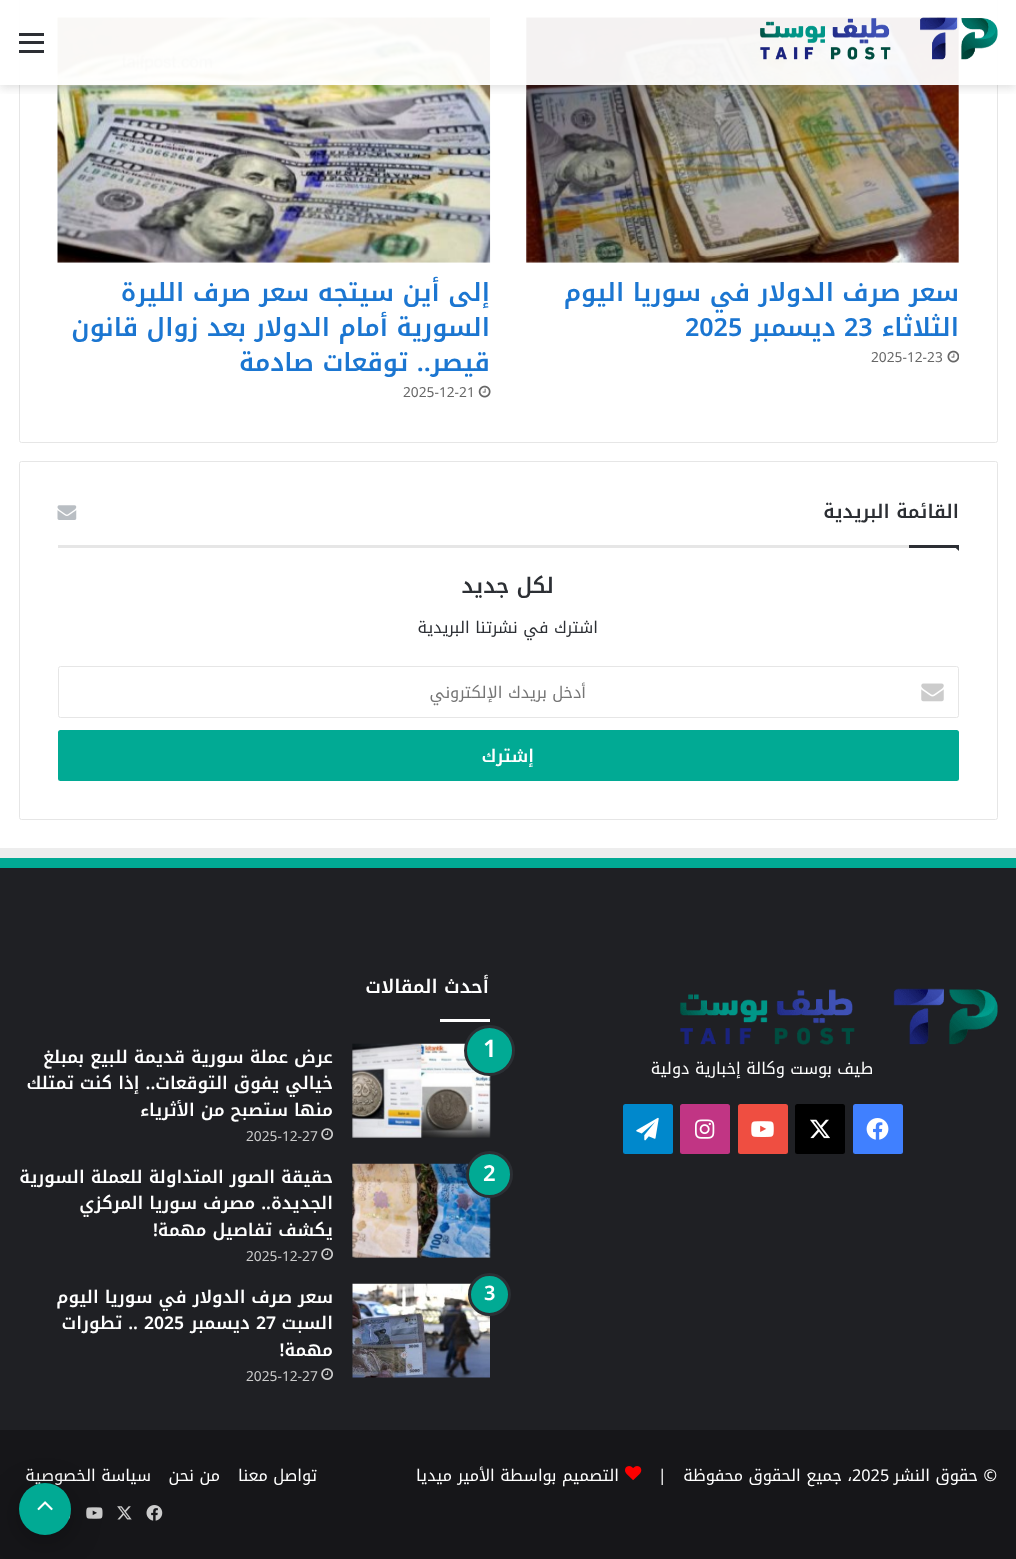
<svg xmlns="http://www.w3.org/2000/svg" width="1016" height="1559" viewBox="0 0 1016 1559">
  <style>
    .t1 { font: 600 25px Noto Kufi Arabic; direction: rtl; fill: #1b76d1; }
    .t2 { font: 600 25px Noto Kufi Arabic; fill: #1b76d1; }
    .t3 { font: 13.75px Noto Kufi Arabic; fill: #666; }
    .t4 { font: 600 18.75px Noto Kufi Arabic; direction: rtl; fill: #2c2f34; }
    .t5 { font: 600 21.25px Noto Kufi Arabic; direction: rtl; fill: #2c2f34; }
    .t6 { font: 16.25px Noto Kufi Arabic; direction: rtl; fill: #2c2f34; }
    .t7 { font: 16.25px Noto Kufi Arabic; direction: rtl; fill: #757575; }
    .t8 { font: 600 17.5px Noto Kufi Arabic; direction: rtl; fill: #fff; }
    .t9 { font: 16.25px Noto Kufi Arabic; direction: rtl; fill: #fff; }
    .t10 { font: 600 18.75px Noto Kufi Arabic; direction: rtl; fill: #fff; }
    .t11 { font: 600 24px Noto Kufi Arabic; fill: #fff; }
    .t12 { font: 13.75px Noto Kufi Arabic; fill: #ccc; }
    .t13 { font: 600 22px Noto Kufi Arabic; fill: #fff; }
    .t14 { font: 600 20px Noto Kufi Arabic; fill: #fff; }
    .t15 { font: 600 17.5px Noto Kufi Arabic; fill: #fff; }
    .t16 { font: 16.25px Noto Kufi Arabic; fill: #fff; }
  </style>
  <defs>
    <clipPath id="clip1"><rect x="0" y="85" width="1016" height="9"/></clipPath>
  </defs>
  <rect width="100%" height="100%" fill="#fff"/>
  <rect x="19.5" y="-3.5" width="978" height="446" rx="2" fill="none" stroke="#e6e6e6"/>
  <image x="526" y="17" width="433" height="246" href="images/2.png"/>
  <image x="57" y="17" width="434" height="246" href="images/4.png"/>
  <g clip-path="url(#clip1)">
    <rect x="0" y="3" width="1016" height="85" fill="#63636333" filter="blur(5px)"/>
  </g>
  <rect x="19" y="0" width="979" height="85" fill="#fffffff2"/>
  <image x="760" y="17" width="238" height="43" href="images/1.png"/>
  <rect x="19" y="41" width="25" height="3" fill="#2c2f34"/>
  <rect x="19" y="33" width="25" height="3" fill="#2c2f34"/>
  <rect x="19" y="50" width="25" height="3" fill="#2c2f34"/>
  <text x="959" y="301" class="t1">سعر صرف الدولار في سوريا اليوم</text>
  <text x="959" y="336" class="t1">الثلاثاء</text>
  <text x="844" y="336" class="t2">23</text>
  <text x="836" y="336" class="t1">ديسمبر</text>
  <text x="685" y="336" class="t2">2025</text>
  <image x="947" y="350" width="12" height="13" href="images/3.png"/>
  <text x="871" y="362" class="t3">2025-12-23</text>
  <text x="490" y="301" class="t1">إلى أين سيتجه سعر صرف الليرة</text>
  <text x="490" y="336" class="t1">السورية أمام الدولار بعد زوال قانون</text>
  <text x="490" y="371" class="t1">قيصر.. توقعات صادمة</text>
  <image x="478" y="385" width="13" height="13" href="images/5.png"/>
  <text x="403" y="397" class="t3">2025-12-21</text>
  <rect x="19.5" y="461.5" width="978" height="358" rx="2" fill="none" stroke="#e6e6e6"/>
  <rect x="58" y="545" width="851" height="3" fill="#e6e6e6"/>
  <text x="959" y="518" class="t4">القائمة البريدية</text>
  <image x="57" y="505" width="20" height="15" href="images/6.png"/>
  <path d="M952.5 545H959V551Z" fill="#2c2f34"/>
  <rect x="909" y="545" width="50" height="3" fill="#2c2f34"/>
  <text x="554" y="593" class="t5">لكل جديد</text>
  <text x="598" y="633" class="t6">اشترك في نشرتنا البريدية</text>
  <rect x="58.5" y="666.5" width="900" height="51" rx="2" fill="none" stroke="#e6e6e6"/>
  <image x="921" y="683" width="23" height="19" href="images/7.png"/>
  <text x="586" y="698" class="t7">أدخل بريدك الإلكتروني</text>
  <rect x="58" y="730" width="901" height="51" rx="2.5" fill="#01aa94"/>
  <text x="534" y="762" class="t8">إشترك</text>
  <rect x="0" y="868" width="1016" height="562" fill="#1f2024"/>
  <rect x="0" y="848" width="1016" height="10" fill="#ededed"/>
  <rect x="0" y="858" width="1016" height="10" fill="#01aa94"/>
  <image x="680" y="988" width="318" height="57" href="images/8.png"/>
  <text x="873" y="1074" class="t9">طيف بوست وكالة إخبارية دولية</text>
  <rect x="853" y="1104" width="50" height="50" rx="2.5" fill="#4080ff"/>
  <image x="866" y="1118" width="23" height="22" href="images/9.png"/>
  <rect x="795" y="1104" width="50" height="50" rx="2.5" fill="#000"/>
  <image x="810" y="1119" width="20" height="20" href="images/10.png"/>
  <rect x="738" y="1104" width="50" height="50" rx="2.5" fill="#ef4e41"/>
  <image x="751" y="1121" width="23" height="16" href="images/11.png"/>
  <rect x="680" y="1104" width="50" height="50" rx="2.5" fill="#c13584"/>
  <image x="695" y="1119" width="20" height="20" href="images/12.png"/>
  <rect x="623" y="1104" width="50" height="50" rx="2.5" fill="#08c"/>
  <image x="636" y="1117" width="23" height="24" href="images/13.png"/>
  <text x="489" y="993" class="t10">أحدث المقالات</text>
  <rect x="440" y="1019" width="50" height="3" fill="#fff"/>
  <image x="352" y="1043" width="139" height="95" href="images/14.png"/>
  <circle cx="489.5" cy="1050.5" r="24" fill="#01aa94" stroke="#2c2f34" stroke-width="3"/>
  <text x="483" y="1057" class="t11">1</text>
  <text x="333" y="1063" class="t8">عرض عملة سورية قديمة للبيع بمبلغ</text>
  <text x="333" y="1089" class="t8">خيالي يفوق التوقعات.. إذا كنت تمتلك</text>
  <text x="333" y="1116" class="t8">منها ستصبح من الأثرياء</text>
  <image x="321" y="1128" width="12" height="12" href="images/15.png"/>
  <text x="246" y="1141" class="t12">2025-12-27</text>
  <image x="352" y="1163" width="139" height="95" href="images/16.png"/>
  <circle cx="489.5" cy="1174.5" r="22" fill="#01aa94" stroke="#2c2f34" stroke-width="3"/>
  <text x="483" y="1181" class="t13">2</text>
  <text x="333" y="1183" class="t8">حقيقة الصور المتداولة للعملة السورية</text>
  <text x="333" y="1209" class="t8">الجديدة.. مصرف سوريا المركزي</text>
  <text x="333" y="1236" class="t8">يكشف تفاصيل مهمة!</text>
  <image x="321" y="1248" width="12" height="12" href="images/15.png"/>
  <text x="246" y="1261" class="t12">2025-12-27</text>
  <image x="352" y="1283" width="138" height="95" href="images/17.png"/>
  <circle cx="489.5" cy="1294.5" r="20" fill="#01aa94" stroke="#2c2f34" stroke-width="3"/>
  <text x="484" y="1300" class="t14">3</text>
  <text x="333" y="1303" class="t8">سعر صرف الدولار في سوريا اليوم</text>
  <text x="333" y="1329" class="t8">السبت</text>
  <text x="256" y="1329" class="t15">27</text>
  <text x="250" y="1329" class="t8">ديسمبر</text>
  <text x="144" y="1329" class="t15">2025</text>
  <text x="138" y="1329" class="t8">.. تطورات</text>
  <text x="333" y="1356" class="t8">مهمة!</text>
  <image x="321" y="1368" width="12" height="12" href="images/15.png"/>
  <text x="246" y="1381" class="t12">2025-12-27</text>
  <rect x="0" y="1430" width="1016" height="129" fill="#161619"/>
  <text x="997" y="1481" class="t9">© حقوق النشر</text>
  <text x="852" y="1481" class="t16">2025</text>
  <text x="852" y="1481" class="t9" xml:space="preserve">، جميع الحقوق محفوظة   |</text>
  <image x="625" y="1466" width="17" height="14" href="images/18.png"/>
  <text x="619" y="1481" class="t9">التصميم بواسطة الأمير ميديا</text>
  <text x="317" y="1481" class="t9">تواصل معنا</text>
  <text x="220" y="1481" class="t9">من نحن</text>
  <text x="151" y="1481" class="t9">سياسة الخصوصية</text>
  <image x="146" y="1505" width="17" height="16" href="images/19.png"/>
  <image x="117" y="1506" width="15" height="14" href="images/20.png"/>
  <image x="86" y="1507" width="17" height="12" href="images/21.png"/>
  <image x="68" y="1509" width="3" height="11" href="images/22.png"/>
  <rect x="19" y="1489" width="52" height="52" rx="26" fill="#0000004d" filter="blur(15.5px)"/>
  <circle cx="45" cy="1509" r="26" fill="#01aa94"/>
  <image x="37" y="1501" width="16" height="10" href="images/23.png"/>
</svg>
